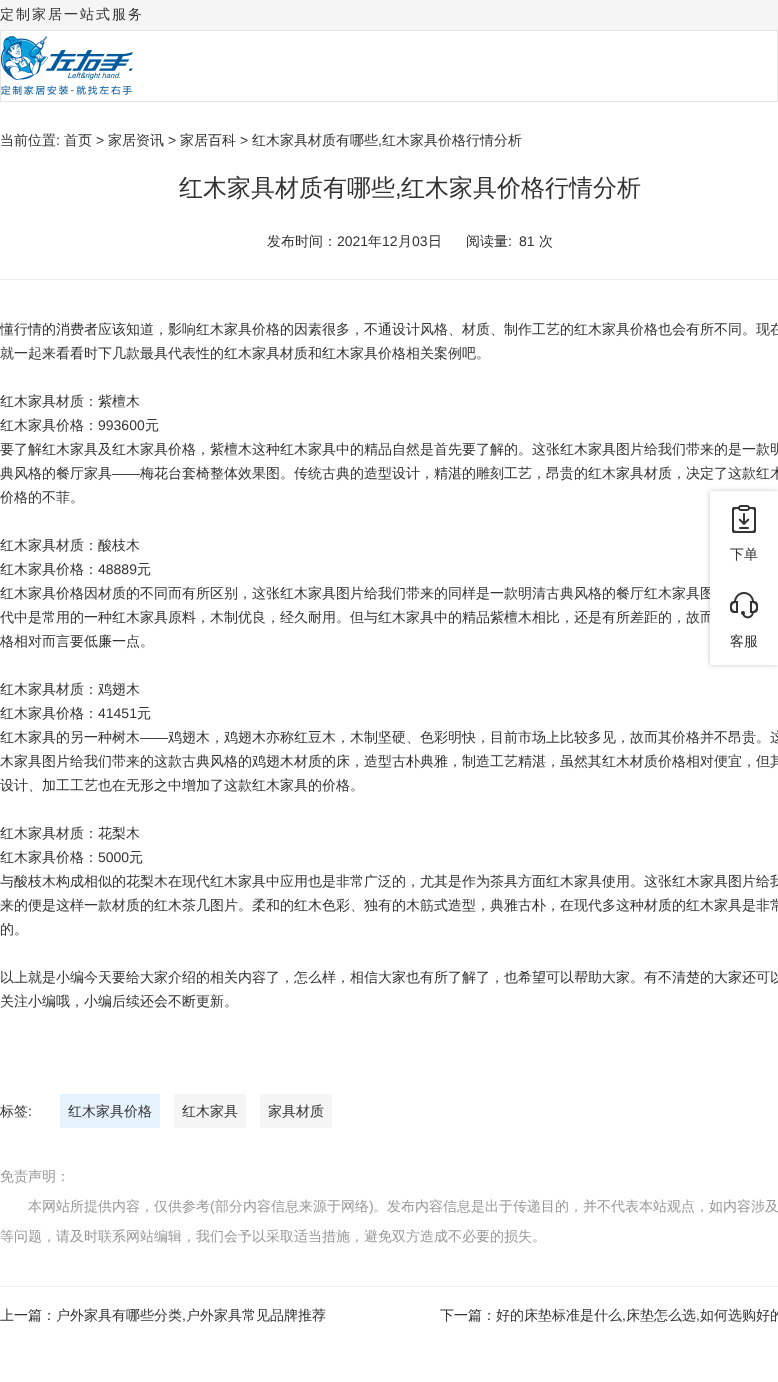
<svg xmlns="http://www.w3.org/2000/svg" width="778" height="1382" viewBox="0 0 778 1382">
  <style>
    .t1 { font: 500 14px WenQuanYi Zen Hei; letter-spacing: 2px; fill: #333; }
    .t2 { font: 500 14px WenQuanYi Zen Hei; fill: #333; }
    .t3 { font: 14px Liberation Sans; fill: #333; }
    .t4 { font: 500 24px WenQuanYi Zen Hei; fill: #333; }
    .t5 { font: 24px Liberation Sans; fill: #333; }
    .t6 { font: 500 14px WenQuanYi Zen Hei; fill: #999; }
    .t7 { font: 14px Liberation Sans; fill: #999; }
  </style>
  <defs>
    <clipPath id="clip1"><path d="M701 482H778V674H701ZM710 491H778V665H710Z" clip-rule="evenodd"/></clipPath>
  </defs>
  <rect width="100%" height="100%" fill="#fff"/>
  <rect x="0" y="0" width="778" height="30" fill="#f5f5f5"/>
  <text x="0" y="19" class="t1">定制家居一站式服务</text>
  <rect x="0.5" y="30.5" width="777" height="71" fill="none" stroke="#e6e6e6"/>
  <image x="1" y="36" width="132" height="59" href="images/1.png"/>
  <text x="0" y="145" class="t2">当前位置</text>
  <text x="56" y="145" class="t3">:</text>
  <text x="64" y="145" class="t2">首页</text>
  <text x="96" y="145" class="t3">&gt;</text>
  <text x="108" y="145" class="t2">家居资讯</text>
  <text x="168" y="145" class="t3">&gt;</text>
  <text x="180" y="145" class="t2">家居百科</text>
  <text x="240" y="145" class="t3">&gt;</text>
  <text x="252" y="145" class="t2">红木家具材质有哪些</text>
  <text x="378" y="145" class="t3">,</text>
  <text x="382" y="145" class="t2">红木家具价格行情分析</text>
  <text x="179" y="196" class="t4">红木家具材质有哪些</text>
  <text x="395" y="196" class="t5">,</text>
  <text x="401" y="196" class="t4">红木家具价格行情分析</text>
  <text x="267" y="246" class="t2">发布时间：</text>
  <text x="337" y="246" class="t3">2021</text>
  <text x="368" y="246" class="t2">年</text>
  <text x="382" y="246" class="t3">12</text>
  <text x="398" y="246" class="t2">月</text>
  <text x="412" y="246" class="t3">03</text>
  <text x="428" y="246" class="t2">日</text>
  <text x="466" y="246" class="t2">阅读量</text>
  <text x="508" y="246" class="t3">:</text>
  <text x="519" y="246" class="t3">81</text>
  <text x="539" y="246" class="t2">次</text>
  <rect x="0" y="279" width="778" height="1" fill="#eee"/>
  <text x="0" y="334" class="t2">懂行情的消费者应该知道，影响红木家具价格的因素很多，不通设计风格、材质、制作工艺的红木家具价格也会有所不同。现在</text>
  <text x="0" y="358" class="t2">就一起来看看时下几款最具代表性的红木家具材质和红木家具价格相关案例吧。</text>
  <text x="0" y="406" class="t2">红木家具材质：紫檀木</text>
  <text x="0" y="430" class="t2">红木家具价格：</text>
  <text x="98" y="430" class="t3">993600</text>
  <text x="145" y="430" class="t2">元</text>
  <text x="0" y="454" class="t2">要了解红木家具及红木家具价格，紫檀木这种红木家具中的精品自然是首先要了解的。这张红木家具图片给我们带来的是一款明</text>
  <text x="0" y="478" class="t2">典风格的餐厅家具</text>
  <text x="112" y="478" class="t3">——</text>
  <text x="140" y="478" class="t2">梅花台套椅整体效果图。传统古典的造型设计，精湛的雕刻工艺，昂贵的红木家具材质，决定了这款红木</text>
  <text x="0" y="502" class="t2">价格的不菲。</text>
  <text x="0" y="550" class="t2">红木家具材质：酸枝木</text>
  <text x="0" y="574" class="t2">红木家具价格：</text>
  <text x="98" y="574" class="t3">48889</text>
  <text x="137" y="574" class="t2">元</text>
  <text x="0" y="598" class="t2">红木家具价格因材质的不同而有所区别，这张红木家具图片给我们带来的同样是一款明清古典风格的餐厅红木家具图</text>
  <text x="0" y="622" class="t2">代中是常用的一种红木家具原料，木制优良，经久耐用。但与红木家具中的精品紫檀木相比，还是有所差距的，故而</text>
  <text x="0" y="646" class="t2">格相对而言要低廉一点。</text>
  <text x="0" y="694" class="t2">红木家具材质：鸡翅木</text>
  <text x="0" y="718" class="t2">红木家具价格：</text>
  <text x="98" y="718" class="t3">41451</text>
  <text x="137" y="718" class="t2">元</text>
  <text x="0" y="742" class="t2">红木家具的另一种树木</text>
  <text x="140" y="742" class="t3">——</text>
  <text x="168" y="742" class="t2">鸡翅木，鸡翅木亦称红豆木，木制坚硬、色彩明快，目前市场上比较多见，故而其价格并不昂贵。这</text>
  <text x="0" y="766" class="t2">木家具图片给我们带来的这款古典风格的鸡翅木材质的床，造型古朴典雅，制造工艺精湛，虽然其红木材质价格相对便宜，但其</text>
  <text x="0" y="790" class="t2">设计、加工工艺也在无形之中增加了这款红木家具的价格。</text>
  <text x="0" y="838" class="t2">红木家具材质：花梨木</text>
  <text x="0" y="862" class="t2">红木家具价格：</text>
  <text x="98" y="862" class="t3">5000</text>
  <text x="129" y="862" class="t2">元</text>
  <text x="0" y="886" class="t2">与酸枝木构成相似的花梨木在现代红木家具中应用也是非常广泛的，尤其是作为茶具方面红木家具使用。这张红木家具图片给我</text>
  <text x="0" y="910" class="t2">来的便是这样一款材质的红木茶几图片。柔和的红木色彩、独有的木筋式造型，典雅古朴，在现代多这种材质的红木家具是非常</text>
  <text x="0" y="934" class="t2">的。</text>
  <text x="0" y="982" class="t2">以上就是小编今天要给大家介绍的相关内容了，怎么样，相信大家也有所了解了，也希望可以帮助大家。有不清楚的大家还可以</text>
  <text x="0" y="1006" class="t2">关注小编哦，小编后续还会不断更新。</text>
  <text x="0" y="1116" class="t2">标签</text>
  <text x="28" y="1116" class="t3">:</text>
  <rect x="60" y="1094" width="100" height="34" fill="#e6f3fc"/>
  <text x="68" y="1116" class="t2">红木家具价格</text>
  <rect x="174" y="1094" width="72" height="34" fill="#f5f5f5"/>
  <text x="182" y="1116" class="t2">红木家具</text>
  <rect x="260" y="1094" width="72" height="34" fill="#f5f5f5"/>
  <text x="268" y="1116" class="t2">家具材质</text>
  <text x="0" y="1181" class="t6">免责声明：</text>
  <text x="28" y="1211" class="t6">本网站所提供内容，仅供参考</text>
  <text x="210" y="1211" class="t7">(</text>
  <text x="215" y="1211" class="t6">部分内容信息来源于网络</text>
  <text x="369" y="1211" class="t7">)</text>
  <text x="373" y="1211" class="t6">。发布内容信息是出于传递目的，并不代表本站观点，如内容涉及</text>
  <text x="0" y="1241" class="t6">等问题，请及时联系网站编辑，我们会予以采取适当措施，避免双方造成不必要的损失。</text>
  <rect x="0" y="1286" width="778" height="1" fill="#eee"/>
  <text x="0" y="1320" class="t2">上一篇：户外家具有哪些分类</text>
  <text x="182" y="1320" class="t3">,</text>
  <text x="186" y="1320" class="t2">户外家具常见品牌推荐</text>
  <text x="440" y="1320" class="t2">下一篇：好的床垫标准是什么</text>
  <text x="622" y="1320" class="t3">,</text>
  <text x="626" y="1320" class="t2">床垫怎么选</text>
  <text x="696" y="1320" class="t3">,</text>
  <text x="700" y="1320" class="t2">如何选购好的</text>
  <g clip-path="url(#clip1)">
    <rect x="710" y="491" width="68" height="174" fill="#00000038" filter="blur(2.5px)"/>
  </g>
  <image x="732" y="505" width="24" height="28" href="images/2.png"/>
  <text x="730" y="559" class="t2">下单</text>
  <rect x="710" y="587" width="4" height="37" fill="#fff"/>
  <image x="730" y="592" width="28" height="27" href="images/3.png"/>
  <text x="730" y="646" class="t2">客服</text>
</svg>
